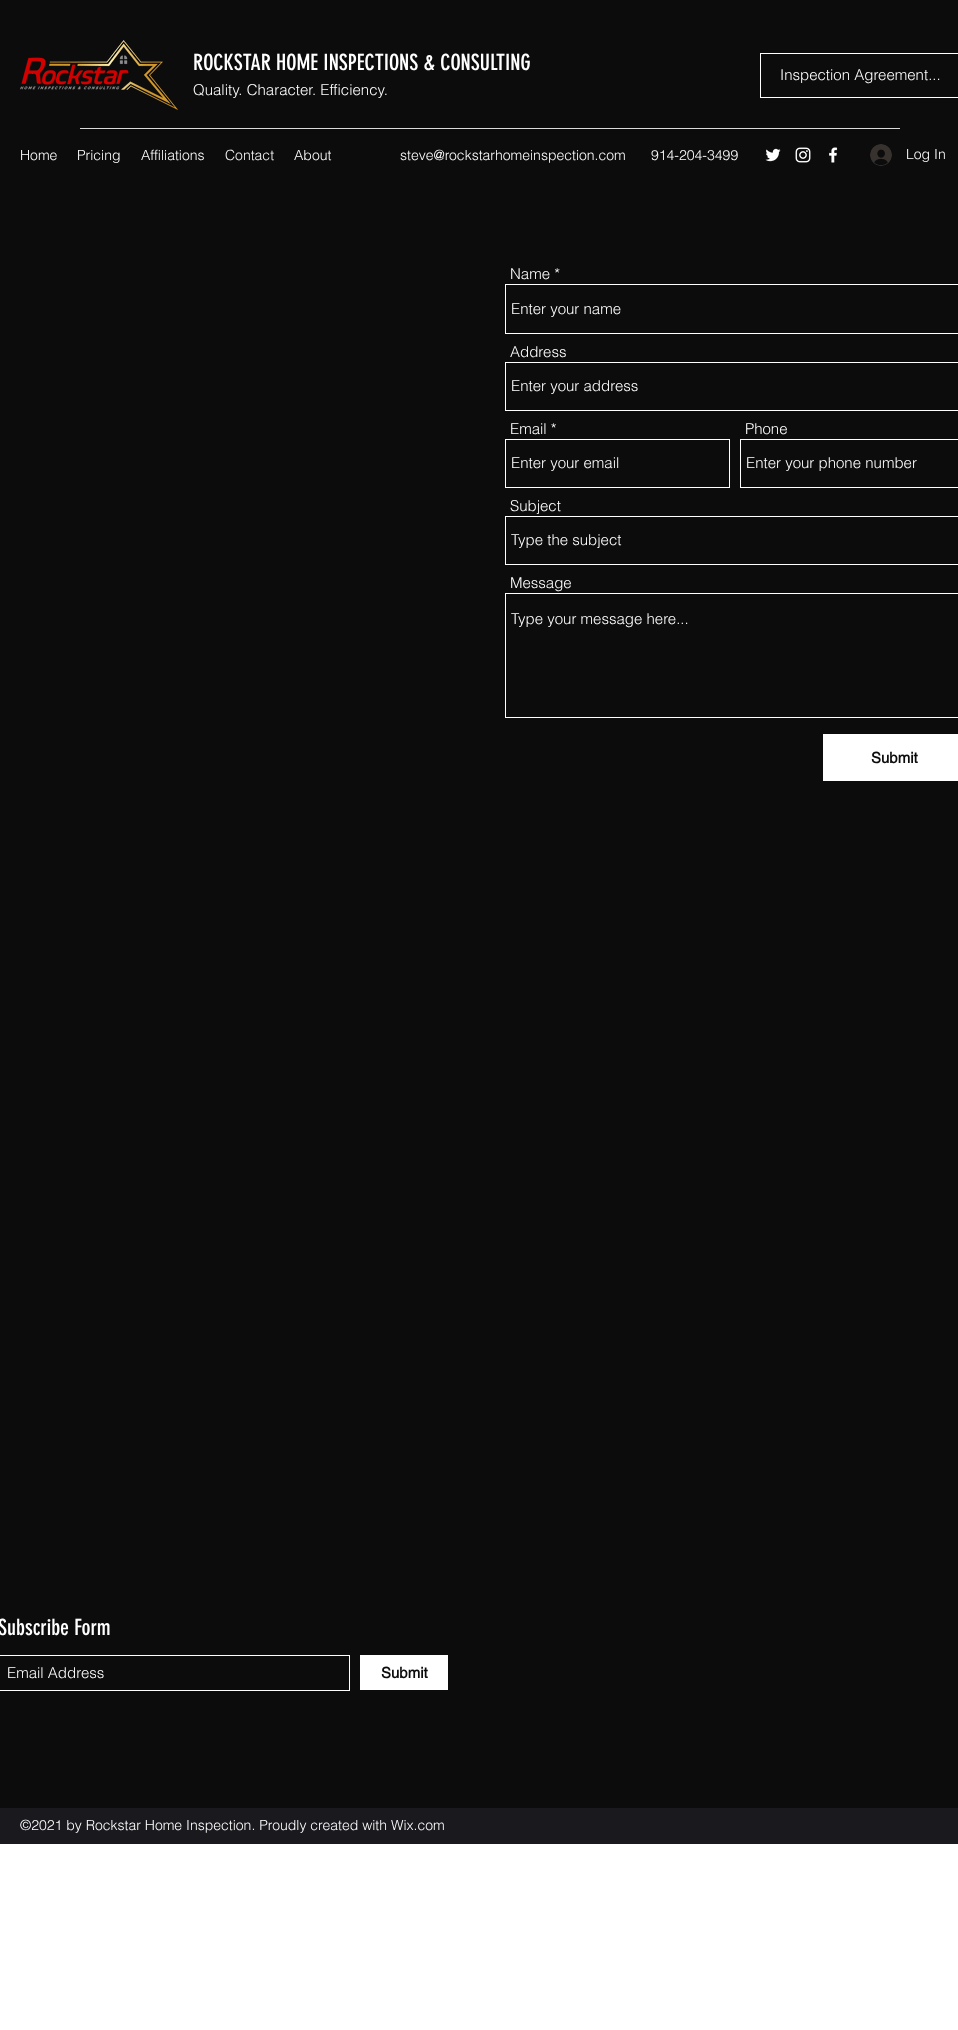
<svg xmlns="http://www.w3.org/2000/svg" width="958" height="2030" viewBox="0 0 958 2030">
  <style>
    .t1 { font: 22px 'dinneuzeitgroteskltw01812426'; fill: #fff; }
    .t2 { font: 300 15px helvetica; fill: #fff; }
    .t3 { font: 300 14px helvetica; fill: #fff; }
    .t4 { font: 300 14px helvetica; fill: #f7f7f7; }
    .t5 { font: bold 15px helvetica; fill: #0c0c0d; }
  </style>
  <rect width="100%" height="100%" fill="#fff"/>
  <rect x="0" y="0" width="958" height="1808" fill="#0c0c0d"/>
  <image x="20" y="40" width="158" height="70" href="images/1.png"/>
  <text x="193" y="70" class="t1">ROCKSTAR HOME INSPECTIONS &amp; CONSULTING</text>
  <text x="193" y="95" class="t2">Quality. Character. Efficiency.</text>
  <rect x="760.5" y="53.5" width="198" height="44" fill="none" stroke="#fff"/>
  <text x="780" y="80" class="t2">Inspection Agreement...</text>
  <rect x="80" y="128" width="820" height="1" fill="#dbdbdb"/>
  <text x="20" y="160" class="t3">Home</text>
  <text x="77" y="160" class="t3">Pricing</text>
  <text x="141" y="160" class="t3">Affiliations</text>
  <text x="225" y="160" class="t4">Contact</text>
  <text x="294" y="160" class="t3">About</text>
  <text x="400" y="160" class="t3">steve@rockstarhomeinspection.com</text>
  <text x="651" y="160" class="t3">914-204-3499</text>
  <image x="765" y="148" width="16" height="14" href="images/2.png"/>
  <image x="795" y="147" width="16" height="16" href="images/3.png"/>
  <image x="829" y="147" width="9" height="16" href="images/4.png"/>
  <image x="870" y="144" width="22" height="22" href="images/5.png"/>
  <text x="906" y="159" class="t3">Log In</text>
  <text x="510" y="279" class="t2">Name *</text>
  <rect x="505.5" y="284.5" width="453" height="49" fill="none" stroke="#fff"/>
  <text x="511" y="314" class="t2">Enter your name</text>
  <text x="510" y="357" class="t2">Address</text>
  <rect x="505.5" y="362.5" width="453" height="48" fill="none" stroke="#fff"/>
  <text x="511" y="391" class="t2">Enter your address</text>
  <text x="510" y="434" class="t2">Email *</text>
  <rect x="505.5" y="439.5" width="224" height="48" fill="none" stroke="#fff"/>
  <text x="511" y="468" class="t2">Enter your email</text>
  <text x="745" y="434" class="t2">Phone</text>
  <rect x="740.5" y="439.5" width="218" height="48" fill="none" stroke="#fff"/>
  <text x="746" y="468" class="t2">Enter your phone number</text>
  <text x="510" y="511" class="t2">Subject</text>
  <rect x="505.5" y="516.5" width="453" height="48" fill="none" stroke="#fff"/>
  <text x="511" y="545" class="t2">Type the subject</text>
  <text x="510" y="588" class="t2">Message</text>
  <rect x="505.5" y="593.5" width="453" height="124" fill="none" stroke="#fff"/>
  <text x="511" y="624" class="t2">Type your message here...</text>
  <rect x="823" y="734" width="135" height="47" fill="#fff"/>
  <text x="871" y="763" class="t5">Submit</text>
  <text x="-2" y="1635" class="t1">Subscribe Form</text>
  <rect x="-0.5" y="1655.5" width="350" height="35" fill="none" stroke="#fff"/>
  <text x="7" y="1678" class="t2">Email Address</text>
  <rect x="360" y="1655" width="88" height="35" fill="#fff"/>
  <text x="381" y="1678" class="t5">Submit</text>
  <rect x="0" y="1808" width="958" height="36" fill="#19191e"/>
  <text x="20" y="1830" class="t3">©2021 by Rockstar Home Inspection. Proudly created with Wix.com</text>
</svg>
